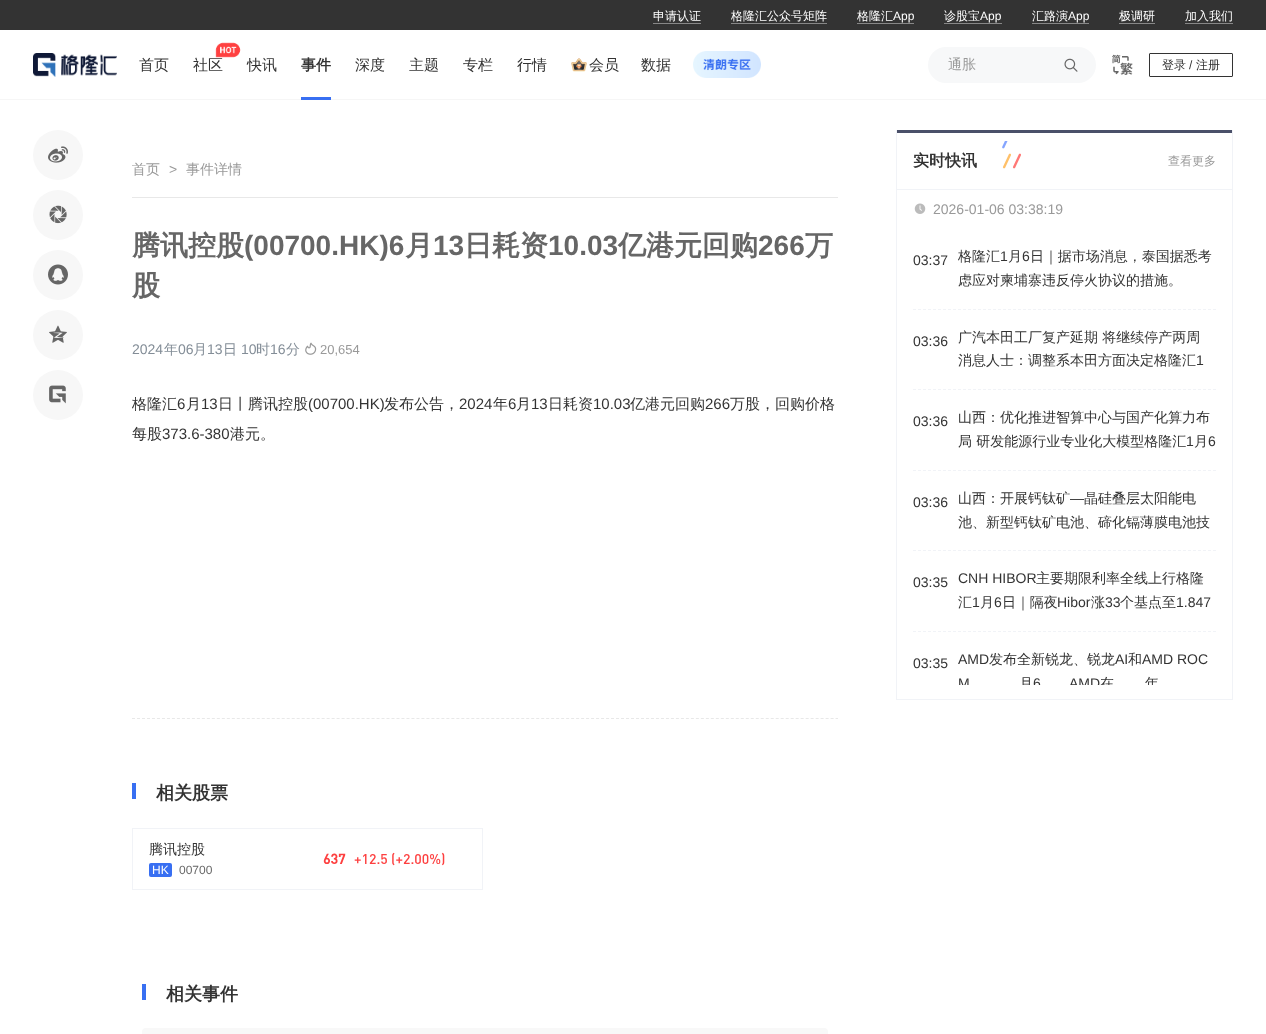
<svg xmlns="http://www.w3.org/2000/svg" width="1266" height="1034" viewBox="0 0 1266 1034">
  <style>
    .t1 { font: 500 12px WenQuanYi Zen Hei; fill: #fff; }
    .t2 { font: 12px Liberation Sans; fill: #fff; }
    .t3 { font: 500 15px WenQuanYi Zen Hei; fill: #333; }
    .t4 { font: bold 15px WenQuanYi Zen Hei; fill: #333; }
    .t5 { font: 500 14px WenQuanYi Zen Hei; fill: #999; }
    .t6 { font: 500 12px WenQuanYi Zen Hei; fill: #333; }
    .t7 { font: 12px Liberation Sans; fill: #333; }
    .t8 { font: 14px Liberation Sans; fill: #999; }
    .t9 { font: bold 28px WenQuanYi Zen Hei; fill: #666; }
    .t10 { font: bold 28px Liberation Sans; fill: #666; }
    .t11 { font: 14px Liberation Sans; fill: #838d97; }
    .t12 { font: 500 14px WenQuanYi Zen Hei; fill: #838d97; }
    .t13 { font: 13px Liberation Sans; fill: #999; }
    .t14 { font: 15px Liberation Sans; fill: #333; }
    .t15 { font: bold 18px WenQuanYi Zen Hei; fill: #333; }
    .t16 { font: 500 14px WenQuanYi Zen Hei; fill: #333; }
    .t17 { font: 12px Liberation Sans; fill: #666; }
    .t18 { font: bold 14px DIN; fill: #fd4040; }
    .t19 { font: 500 14px DIN; fill: #fd4040; }
    .t20 { font: bold 16px WenQuanYi Zen Hei; fill: #333; }
    .t21 { font: 500 12px WenQuanYi Zen Hei; fill: #999; }
    .t22 { font: 14px Liberation Sans; fill: #333; }
  </style>
  <defs>
    <clipPath id="clip1"><rect x="948" y="648" width="268" height="37"/></clipPath>
  </defs>
  <rect width="100%" height="100%" fill="#fff"/>
  <rect x="0" y="0" width="1266" height="30" fill="#333"/>
  <text x="653" y="20" class="t1">申请认证</text>
  <rect x="653" y="23" width="48" height="1" fill="#878787"/>
  <text x="731" y="20" class="t1">格隆汇公众号矩阵</text>
  <rect x="731" y="23" width="96" height="1" fill="#878787"/>
  <text x="857" y="20" class="t1">格隆汇</text>
  <text x="893" y="20" class="t2">App</text>
  <rect x="857" y="23" width="57" height="1" fill="#878787"/>
  <text x="944" y="20" class="t1">诊股宝</text>
  <text x="980" y="20" class="t2">App</text>
  <rect x="944" y="23" width="58" height="1" fill="#878787"/>
  <text x="1032" y="20" class="t1">汇路演</text>
  <text x="1068" y="20" class="t2">App</text>
  <rect x="1032" y="23" width="57" height="1" fill="#878787"/>
  <text x="1119" y="20" class="t1">极调研</text>
  <rect x="1119" y="23" width="36" height="1" fill="#878787"/>
  <text x="1185" y="20" class="t1">加入我们</text>
  <rect x="1185" y="23" width="48" height="1" fill="#878787"/>
  <rect x="0" y="99" width="1266" height="1" fill="#f6f6f6"/>
  <image x="33" y="53" width="84" height="24" href="images/1.png"/>
  <text x="139" y="70" class="t3">首页</text>
  <text x="193" y="70" class="t3">社区</text>
  <image x="215" y="42" width="26" height="16" href="images/2.png"/>
  <text x="247" y="70" class="t3">快讯</text>
  <text x="301" y="70" class="t4">事件</text>
  <rect x="301" y="97" width="30" height="3" fill="#386ff2"/>
  <text x="355" y="70" class="t3">深度</text>
  <text x="409" y="70" class="t3">主题</text>
  <text x="463" y="70" class="t3">专栏</text>
  <text x="517" y="70" class="t3">行情</text>
  <image x="571" y="58" width="16" height="14" href="images/3.png"/>
  <text x="589" y="70" class="t3">会员</text>
  <text x="641" y="70" class="t3">数据</text>
  <image x="693" y="51" width="68" height="27" href="images/4.png"/>
  <rect x="928" y="47" width="168" height="36" rx="18" fill="#f7f8f9"/>
  <text x="948" y="69" class="t5">通胀</text>
  <image x="1064" y="58" width="14" height="14" href="images/5.png"/>
  <image x="1112" y="54" width="21" height="21" href="images/6.png"/>
  <rect x="1149.5" y="53.5" width="83" height="23" rx="0.5" fill="none" stroke="#333"/>
  <text x="1162" y="69" class="t6">登录</text>
  <text x="1189" y="69" class="t7">/</text>
  <text x="1196" y="69" class="t6">注册</text>
  <circle cx="58" cy="155" r="25" fill="#f7f7f7"/>
  <image x="48" y="146" width="20" height="17" href="images/7.png"/>
  <circle cx="58" cy="215" r="25" fill="#f7f7f7"/>
  <image x="49" y="205" width="18" height="19" href="images/8.png"/>
  <circle cx="58" cy="275" r="25" fill="#f7f7f7"/>
  <image x="48" y="264" width="20" height="21" href="images/9.png"/>
  <circle cx="58" cy="335" r="25" fill="#f7f7f7"/>
  <image x="49" y="325" width="18" height="18" href="images/10.png"/>
  <circle cx="58" cy="395" r="25" fill="#f7f7f7"/>
  <image x="49" y="385" width="17" height="19" href="images/11.png"/>
  <rect x="132" y="197" width="706" height="1" fill="#e8e8e8"/>
  <text x="132" y="174" class="t5">首页</text>
  <text x="169" y="174" class="t8">&gt;</text>
  <text x="186" y="174" class="t5">事件详情</text>
  <text x="132" y="255" class="t9">腾讯控股</text>
  <text x="244" y="255" class="t10">(00700.HK)6</text>
  <text x="405" y="255" class="t9">月</text>
  <text x="433" y="255" class="t10">13</text>
  <text x="464" y="255" class="t9">日耗资</text>
  <text x="548" y="255" class="t10">10.03</text>
  <text x="618" y="255" class="t9">亿港元回购</text>
  <text x="758" y="255" class="t10">266</text>
  <text x="805" y="255" class="t9">万</text>
  <text x="132" y="295" class="t9">股</text>
  <text x="132" y="354" class="t11">2024</text>
  <text x="164" y="354" class="t12">年</text>
  <text x="178" y="354" class="t11">06</text>
  <text x="193" y="354" class="t12">月</text>
  <text x="207" y="354" class="t11">13</text>
  <text x="223" y="354" class="t12">日</text>
  <text x="241" y="354" class="t11">10</text>
  <text x="256" y="354" class="t12">时</text>
  <text x="270" y="354" class="t11">16</text>
  <text x="286" y="354" class="t12">分</text>
  <image x="305" y="342" width="12" height="13" href="images/12.png"/>
  <text x="320" y="354" class="t13">20,654</text>
  <path d="M132 718.5H838" fill="none" stroke="#e8e8e8" stroke-dasharray="3 1.99"/>
  <text x="132" y="409" class="t3">格隆汇</text>
  <text x="177" y="409" class="t14">6</text>
  <text x="186" y="409" class="t3">月</text>
  <text x="201" y="409" class="t14">13</text>
  <text x="218" y="409" class="t3">日丨腾讯控股</text>
  <text x="308" y="409" class="t14">(00700.HK)</text>
  <text x="384" y="409" class="t3">发布公告，</text>
  <text x="459" y="409" class="t14">2024</text>
  <text x="493" y="409" class="t3">年</text>
  <text x="508" y="409" class="t14">6</text>
  <text x="516" y="409" class="t3">月</text>
  <text x="531" y="409" class="t14">13</text>
  <text x="548" y="409" class="t3">日耗资</text>
  <text x="593" y="409" class="t14">10.03</text>
  <text x="630" y="409" class="t3">亿港元回购</text>
  <text x="705" y="409" class="t14">266</text>
  <text x="730" y="409" class="t3">万股，回购价格</text>
  <text x="132" y="439" class="t3">每股</text>
  <text x="162" y="439" class="t14">373.6-380</text>
  <text x="230" y="439" class="t3">港元。</text>
  <rect x="132" y="783" width="4" height="16" fill="#386ff2"/>
  <text x="156" y="799" class="t15">相关股票</text>
  <rect x="132.5" y="828.5" width="350" height="61" fill="none" stroke="#f1f3f7"/>
  <text x="149" y="854" class="t16">腾讯控股</text>
  <rect x="149" y="863" width="23" height="14" rx="2" fill="#386ff2"/>
  <text x="152" y="874" class="t2">HK</text>
  <text x="179" y="874" class="t17">00700</text>
  <text x="323" y="864" class="t18">637</text>
  <text x="354" y="864" class="t19">+12.5 (+2.00%)</text>
  <rect x="142" y="984" width="4" height="16" fill="#386ff2"/>
  <text x="166" y="1000" class="t15">相关事件</text>
  <rect x="142" y="1028" width="686" height="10" rx="4" fill="#f8f8f8"/>
  <rect x="1232" y="130" width="1" height="570" fill="#f1f3f7"/>
  <rect x="896" y="699" width="337" height="1" fill="#f1f3f7"/>
  <rect x="896" y="130" width="1" height="570" fill="#f1f3f7"/>
  <rect x="897" y="130" width="335" height="3" fill="#4a5069"/>
  <rect x="897" y="189" width="335" height="1" fill="#f1f3f7"/>
  <text x="913" y="166" class="t20">实时快讯</text>
  <image x="1002" y="141" width="19" height="28" href="images/13.png"/>
  <text x="1168" y="165" class="t21">查看更多</text>
  <image x="914" y="203" width="12" height="11" href="images/14.png"/>
  <text x="933" y="214" class="t8">2026-01-06 03:38:19</text>
  <path d="M913 309.5H1216" fill="none" stroke="#f1f3f7" stroke-dasharray="3 2"/>
  <text x="913" y="265" class="t22">03:37</text>
  <text x="958" y="261" class="t16">格隆汇</text>
  <text x="1000" y="261" class="t22">1</text>
  <text x="1008" y="261" class="t16">月</text>
  <text x="1022" y="261" class="t22">6</text>
  <text x="1030" y="261" class="t16">日｜据市场消息，泰国据悉考</text>
  <text x="958" y="285" class="t16">虑应对柬埔寨违反停火协议的措施。</text>
  <path d="M913 389.5H1216" fill="none" stroke="#f1f3f7" stroke-dasharray="3 2"/>
  <text x="913" y="346" class="t22">03:36</text>
  <text x="958" y="342" class="t16">广汽本田工厂复产延期 将继续停产两周</text>
  <text x="958" y="365" class="t16">消息人士：调整系本田方面决定格隆汇</text>
  <text x="1196" y="365" class="t22">1</text>
  <path d="M913 470.5H1216" fill="none" stroke="#f1f3f7" stroke-dasharray="3 2"/>
  <text x="913" y="426" class="t22">03:36</text>
  <text x="958" y="422" class="t16">山西：优化推进智算中心与国产化算力布</text>
  <text x="958" y="446" class="t16">局 研发能源行业专业化大模型格隆汇</text>
  <text x="1186" y="446" class="t22">1</text>
  <text x="1194" y="446" class="t16">月</text>
  <text x="1208" y="446" class="t22">6</text>
  <path d="M913 550.5H1216" fill="none" stroke="#f1f3f7" stroke-dasharray="3 2"/>
  <text x="913" y="507" class="t22">03:36</text>
  <text x="958" y="503" class="t16">山西：开展钙钛矿</text>
  <text x="1070" y="503" class="t22">—</text>
  <text x="1084" y="503" class="t16">晶硅叠层太阳能电</text>
  <text x="958" y="527" class="t16">池、新型钙钛矿电池、碲化镉薄膜电池技</text>
  <path d="M913 631.5H1216" fill="none" stroke="#f1f3f7" stroke-dasharray="3 2"/>
  <text x="913" y="587" class="t22">03:35</text>
  <text x="958" y="583" class="t22">CNH HIBOR</text>
  <text x="1036" y="583" class="t16">主要期限利率全线上行格隆</text>
  <text x="958" y="607" class="t16">汇</text>
  <text x="972" y="607" class="t22">1</text>
  <text x="980" y="607" class="t16">月</text>
  <text x="994" y="607" class="t22">6</text>
  <text x="1002" y="607" class="t16">日｜隔夜</text>
  <text x="1057" y="607" class="t22">Hibor</text>
  <text x="1091" y="607" class="t16">涨</text>
  <text x="1105" y="607" class="t22">33</text>
  <text x="1120" y="607" class="t16">个基点至</text>
  <text x="1176" y="607" class="t22">1.847</text>
  <text x="913" y="668" class="t22">03:35</text>
  <text x="958" y="664" class="t22">AMD</text>
  <text x="989" y="664" class="t16">发布全新锐龙、锐龙</text>
  <text x="1115" y="664" class="t22">AI</text>
  <text x="1128" y="664" class="t16">和</text>
  <text x="1142" y="664" class="t22">AMD ROC</text>
  <g clip-path="url(#clip1)">
    <text x="958" y="688" class="t22">M</text>
    <text x="1019" y="688" class="t16">月</text>
    <text x="1033" y="688" class="t22">6</text>
    <text x="1069" y="688" class="t22">AMD</text>
    <text x="1100" y="688" class="t16">在</text>
    <text x="1145" y="688" class="t16">年</text>
  </g>
</svg>
